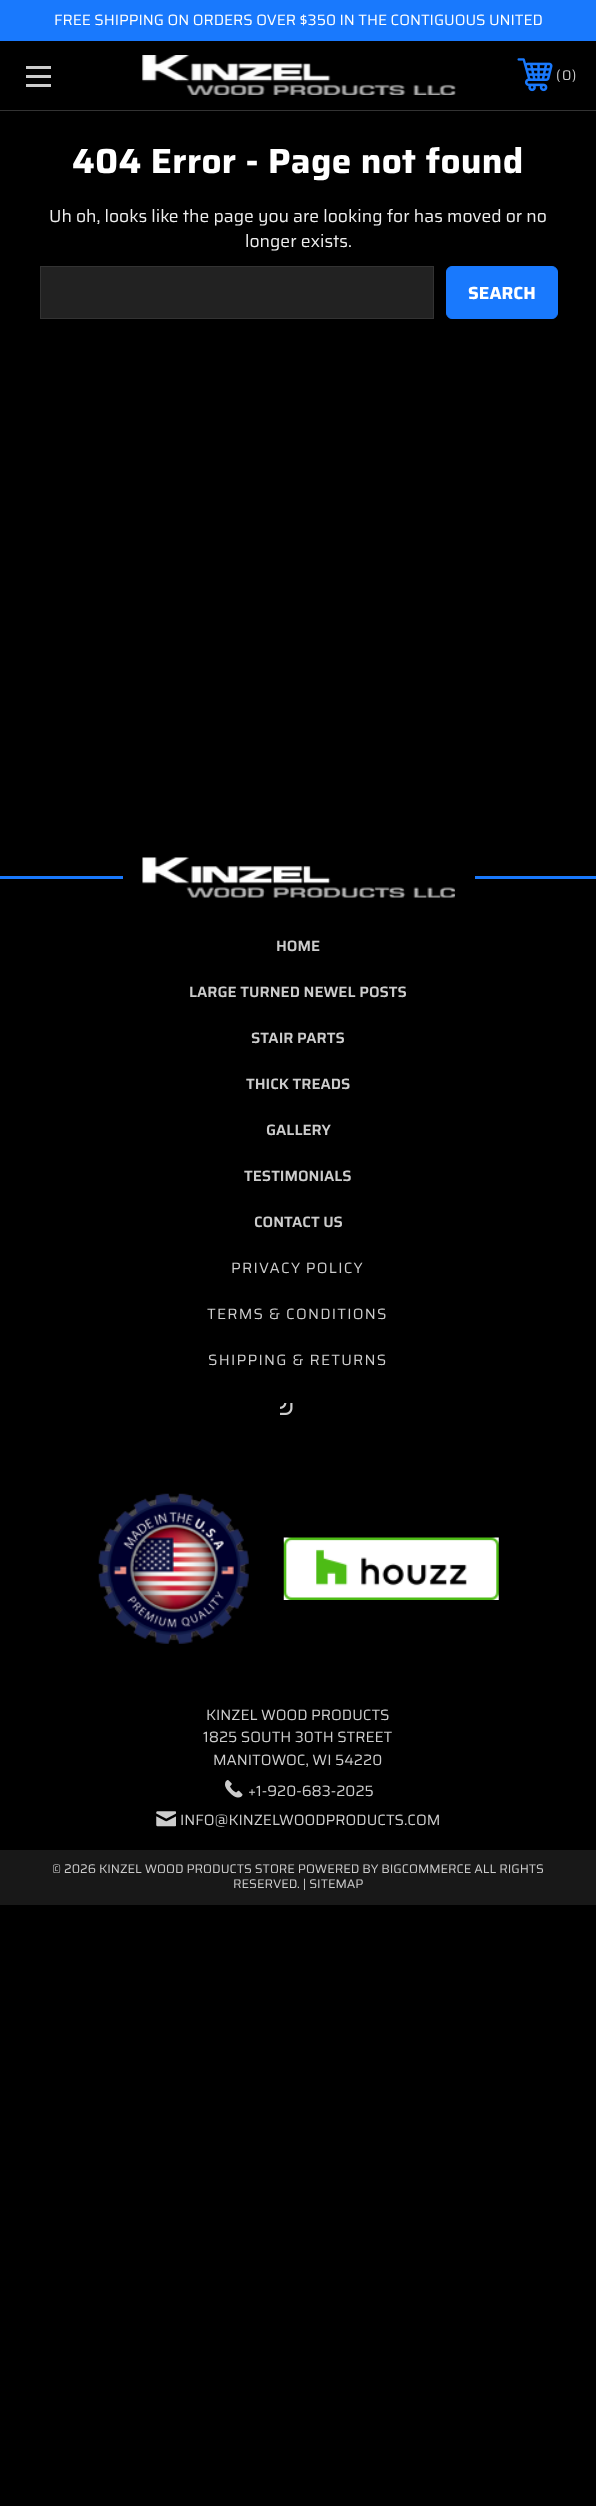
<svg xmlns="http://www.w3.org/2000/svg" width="596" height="2506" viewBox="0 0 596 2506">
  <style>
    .t1 { font: 15px Saira; fill: #fff; }
    .t2 { font: 14px Saira; fill: #ccc; }
    .t3 { font: bold 35px Saira; letter-spacing: 0.3px; fill: #fff; }
    .t4 { font: 17.5px Saira; fill: #eee; }
    .t5 { font: bold 17.5px Saira; fill: #fff; }
    .t6 { font: 600 15px Saira; fill: #ccc; }
    .t7 { font: 15px Saira; letter-spacing: 1.25px; fill: #ccc; }
    .t8 { font: 15px Saira; fill: #ccc; }
    .t9 { font: 12.5px Saira; fill: #ccc; }
  </style>
  <rect width="100%" height="100%" fill="#000"/>
  <rect x="0" y="0" width="596" height="41" fill="#1979fd"/>
  <text x="54" y="25" class="t1">FREE SHIPPING ON ORDERS OVER $350 IN THE CONTIGUOUS UNITED</text>
  <rect x="0" y="110" width="596" height="1" fill="#333"/>
  <rect x="26" y="75" width="25" height="3" fill="#ccc"/>
  <rect x="26" y="66" width="25" height="3" fill="#ccc"/>
  <rect x="26" y="84" width="25" height="3" fill="#ccc"/>
  <image x="142" y="55" width="314" height="40" href="images/1.png"/>
  <image x="517" y="58" width="36" height="34" href="images/2.png"/>
  <text x="556" y="80" class="t2">(</text>
  <text x="562" y="80" class="t2">0</text>
  <text x="572" y="80" class="t2">)</text>
  <text x="72" y="173" class="t3">404 Error - Page not found</text>
  <text x="49" y="222" class="t4">Uh oh, looks like the page you are looking for has moved or no</text>
  <text x="245" y="247" class="t4">longer exists.</text>
  <rect x="40.5" y="266.5" width="393" height="52" fill="#222" stroke="#333"/>
  <rect x="446.5" y="266.5" width="111" height="52" rx="5.5" fill="#1979fd" stroke="#1979fd"/>
  <text x="468" y="299" class="t5">SEARCH</text>
  <rect x="0" y="876" width="596" height="3" fill="#1979fd"/>
  <rect x="123" y="876" width="352" height="3" fill="#000"/>
  <image x="142" y="857" width="313" height="41" href="images/3.png"/>
  <text x="276" y="951" class="t6">HOME</text>
  <text x="189" y="997" class="t6">LARGE TURNED NEWEL POSTS</text>
  <text x="251" y="1043" class="t6">STAIR PARTS</text>
  <text x="246" y="1089" class="t6">THICK TREADS</text>
  <text x="266" y="1135" class="t6">GALLERY</text>
  <text x="244" y="1181" class="t6">TESTIMONIALS</text>
  <text x="254" y="1227" class="t6">CONTACT US</text>
  <text x="231" y="1273" class="t7">PRIVACY POLICY</text>
  <text x="207" y="1319" class="t7">TERMS &amp; CONDITIONS</text>
  <text x="208" y="1365" class="t7">SHIPPING &amp; RETURNS</text>
  <image x="280" y="1403" width="13" height="12" href="images/4.png"/>
  <image x="98" y="1493" width="151" height="151" href="images/5.png"/>
  <image x="283" y="1537" width="216" height="63" href="images/6.png"/>
  <text x="206" y="1720" class="t8">KINZEL WOOD PRODUCTS</text>
  <text x="203" y="1742" class="t8">1825 SOUTH 30TH STREET</text>
  <text x="213" y="1765" class="t8">MANITOWOC, WI 54220</text>
  <image x="225" y="1780" width="18" height="18" href="images/7.png"/>
  <text x="248" y="1796" class="t8">+1-920-683-2025</text>
  <image x="156" y="1811" width="20" height="16" href="images/8.png"/>
  <text x="180" y="1825" class="t8">INFO@KINZELWOODPRODUCTS.COM</text>
  <rect x="0" y="1850" width="596" height="55" fill="#181818"/>
  <text x="52" y="1873" class="t9">© 2026 KINZEL WOOD PRODUCTS STORE POWERED BY BIGCOMMERCE ALL RIGHTS</text>
  <text x="233" y="1888" class="t9">RESERVED. | SITEMAP</text>
</svg>
